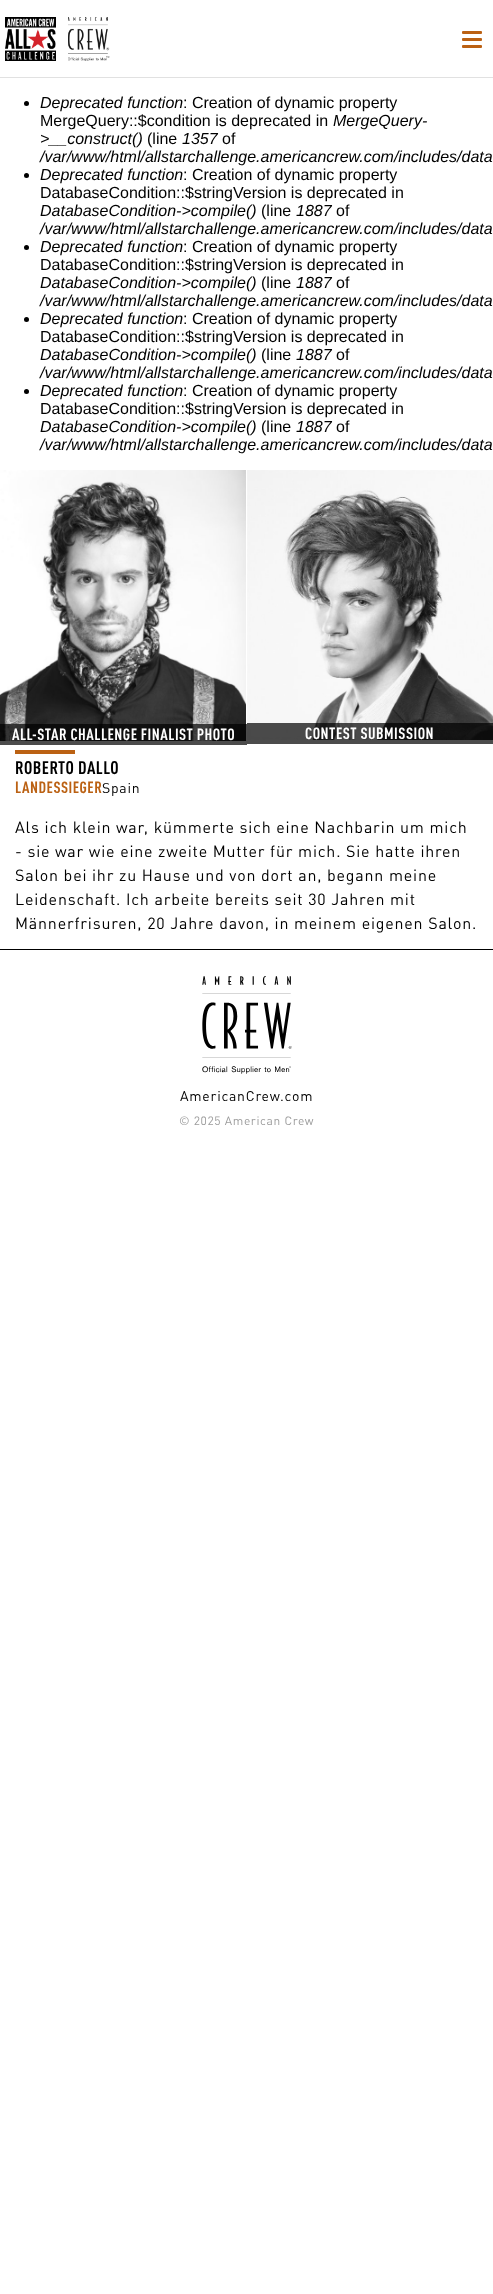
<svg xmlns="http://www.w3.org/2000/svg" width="493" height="2294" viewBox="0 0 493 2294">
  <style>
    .t1 { font: italic 16px Liberation Sans; fill: #000; }
    .t2 { font: 16px Liberation Sans; fill: #000; }
    .t3 { font: bold 16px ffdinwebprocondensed; letter-spacing: 0.5px; fill: #fff; }
    .t4 { font: bold 18px ffdinwebprocondensed; letter-spacing: 0.5px; fill: #000; }
    .t5 { font: bold 16px ffdinwebprocondensed; letter-spacing: 0.5px; fill: #bb6113; }
    .t6 { font: 14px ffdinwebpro; letter-spacing: 0.75px; fill: #000; }
    .t7 { font: 16px ffdinwebpro; letter-spacing: 0.8px; fill: #000; }
    .t8 { font: 12px ffdinwebpro; letter-spacing: 0.6px; fill: #9c9c9c; }
  </style>
  <rect width="100%" height="100%" fill="#fff"/>
  <rect x="0" y="77" width="493" height="1" fill="#e1e1e1"/>
  <image x="5" y="17" width="51" height="44" href="images/1.png"/>
  <image x="68" y="17" width="42" height="44" href="images/2.png"/>
  <rect x="462" y="31" width="20" height="3" rx="1" fill="#bb6113"/>
  <rect x="462" y="38" width="20" height="3" rx="1" fill="#bb6113"/>
  <rect x="462" y="45" width="20" height="3" rx="1" fill="#bb6113"/>
  <circle cx="26.5" cy="103.5" r="2.5" fill="#000"/>
  <text x="40" y="108" class="t1">Deprecated function</text>
  <text x="183" y="108" class="t2">: Creation of dynamic property</text>
  <text x="40" y="126" class="t2">MergeQuery::$condition is deprecated in</text>
  <text x="333" y="126" class="t1">MergeQuery-</text>
  <text x="40" y="144" class="t1">&gt;__construct()</text>
  <text x="147" y="144" class="t2">(line</text>
  <text x="182" y="144" class="t1">1357</text>
  <text x="222" y="144" class="t2">of</text>
  <text x="40" y="162" class="t1">/var/www/html/allstarchallenge.americancrew.com/includes/data</text>
  <circle cx="26.5" cy="175.5" r="2.5" fill="#000"/>
  <text x="40" y="180" class="t1">Deprecated function</text>
  <text x="183" y="180" class="t2">: Creation of dynamic property</text>
  <text x="40" y="198" class="t2">DatabaseCondition::$stringVersion is deprecated in</text>
  <text x="40" y="216" class="t1">DatabaseCondition-&gt;compile()</text>
  <text x="261" y="216" class="t2">(line</text>
  <text x="296" y="216" class="t1">1887</text>
  <text x="336" y="216" class="t2">of</text>
  <text x="40" y="234" class="t1">/var/www/html/allstarchallenge.americancrew.com/includes/data</text>
  <circle cx="26.5" cy="247.5" r="2.5" fill="#000"/>
  <text x="40" y="252" class="t1">Deprecated function</text>
  <text x="183" y="252" class="t2">: Creation of dynamic property</text>
  <text x="40" y="270" class="t2">DatabaseCondition::$stringVersion is deprecated in</text>
  <text x="40" y="288" class="t1">DatabaseCondition-&gt;compile()</text>
  <text x="261" y="288" class="t2">(line</text>
  <text x="296" y="288" class="t1">1887</text>
  <text x="336" y="288" class="t2">of</text>
  <text x="40" y="306" class="t1">/var/www/html/allstarchallenge.americancrew.com/includes/data</text>
  <circle cx="26.5" cy="319.5" r="2.5" fill="#000"/>
  <text x="40" y="324" class="t1">Deprecated function</text>
  <text x="183" y="324" class="t2">: Creation of dynamic property</text>
  <text x="40" y="342" class="t2">DatabaseCondition::$stringVersion is deprecated in</text>
  <text x="40" y="360" class="t1">DatabaseCondition-&gt;compile()</text>
  <text x="261" y="360" class="t2">(line</text>
  <text x="296" y="360" class="t1">1887</text>
  <text x="336" y="360" class="t2">of</text>
  <text x="40" y="378" class="t1">/var/www/html/allstarchallenge.americancrew.com/includes/data</text>
  <circle cx="26.5" cy="391.5" r="2.5" fill="#000"/>
  <text x="40" y="396" class="t1">Deprecated function</text>
  <text x="183" y="396" class="t2">: Creation of dynamic property</text>
  <text x="40" y="414" class="t2">DatabaseCondition::$stringVersion is deprecated in</text>
  <text x="40" y="432" class="t1">DatabaseCondition-&gt;compile()</text>
  <text x="261" y="432" class="t2">(line</text>
  <text x="296" y="432" class="t1">1887</text>
  <text x="336" y="432" class="t2">of</text>
  <text x="40" y="450" class="t1">/var/www/html/allstarchallenge.americancrew.com/includes/data</text>
  <image x="0" y="470" width="246" height="271" href="images/3.png"/>
  <rect x="0" y="724" width="247" height="21" fill="#000000b3"/>
  <text x="12" y="740" class="t3">ALL-STAR CHALLENGE FINALIST PHOTO</text>
  <image x="247" y="470" width="246" height="270" href="images/4.png"/>
  <rect x="247" y="723" width="246" height="21" fill="#000000b3"/>
  <text x="305" y="739" class="t3">CONTEST SUBMISSION</text>
  <rect x="15" y="750" width="60" height="4" fill="#bb6113"/>
  <text x="15" y="774" class="t4">ROBERTO DALLO</text>
  <text x="15" y="793" class="t5">LANDESSIEGER</text>
  <text x="102" y="793" class="t6">Spain</text>
  <text x="15" y="833" class="t7">Als ich klein war, kümmerte sich eine Nachbarin um mich</text>
  <text x="15" y="857" class="t7">- sie war wie eine zweite Mutter für mich. Sie hatte ihren</text>
  <text x="15" y="881" class="t7">Salon bei ihr zu Hause und von dort an, begann meine</text>
  <text x="15" y="905" class="t7">Leidenschaft. Ich arbeite bereits seit 30 Jahren mit</text>
  <text x="15" y="929" class="t7">Männerfrisuren, 20 Jahre davon, in meinem eigenen Salon.</text>
  <rect x="0" y="949" width="493" height="1" fill="#000"/>
  <image x="202" y="976" width="90" height="98" href="images/5.png"/>
  <text x="180" y="1101" class="t6">AmericanCrew.com</text>
  <text x="179" y="1125" class="t8">© 2025 American Crew</text>
</svg>
